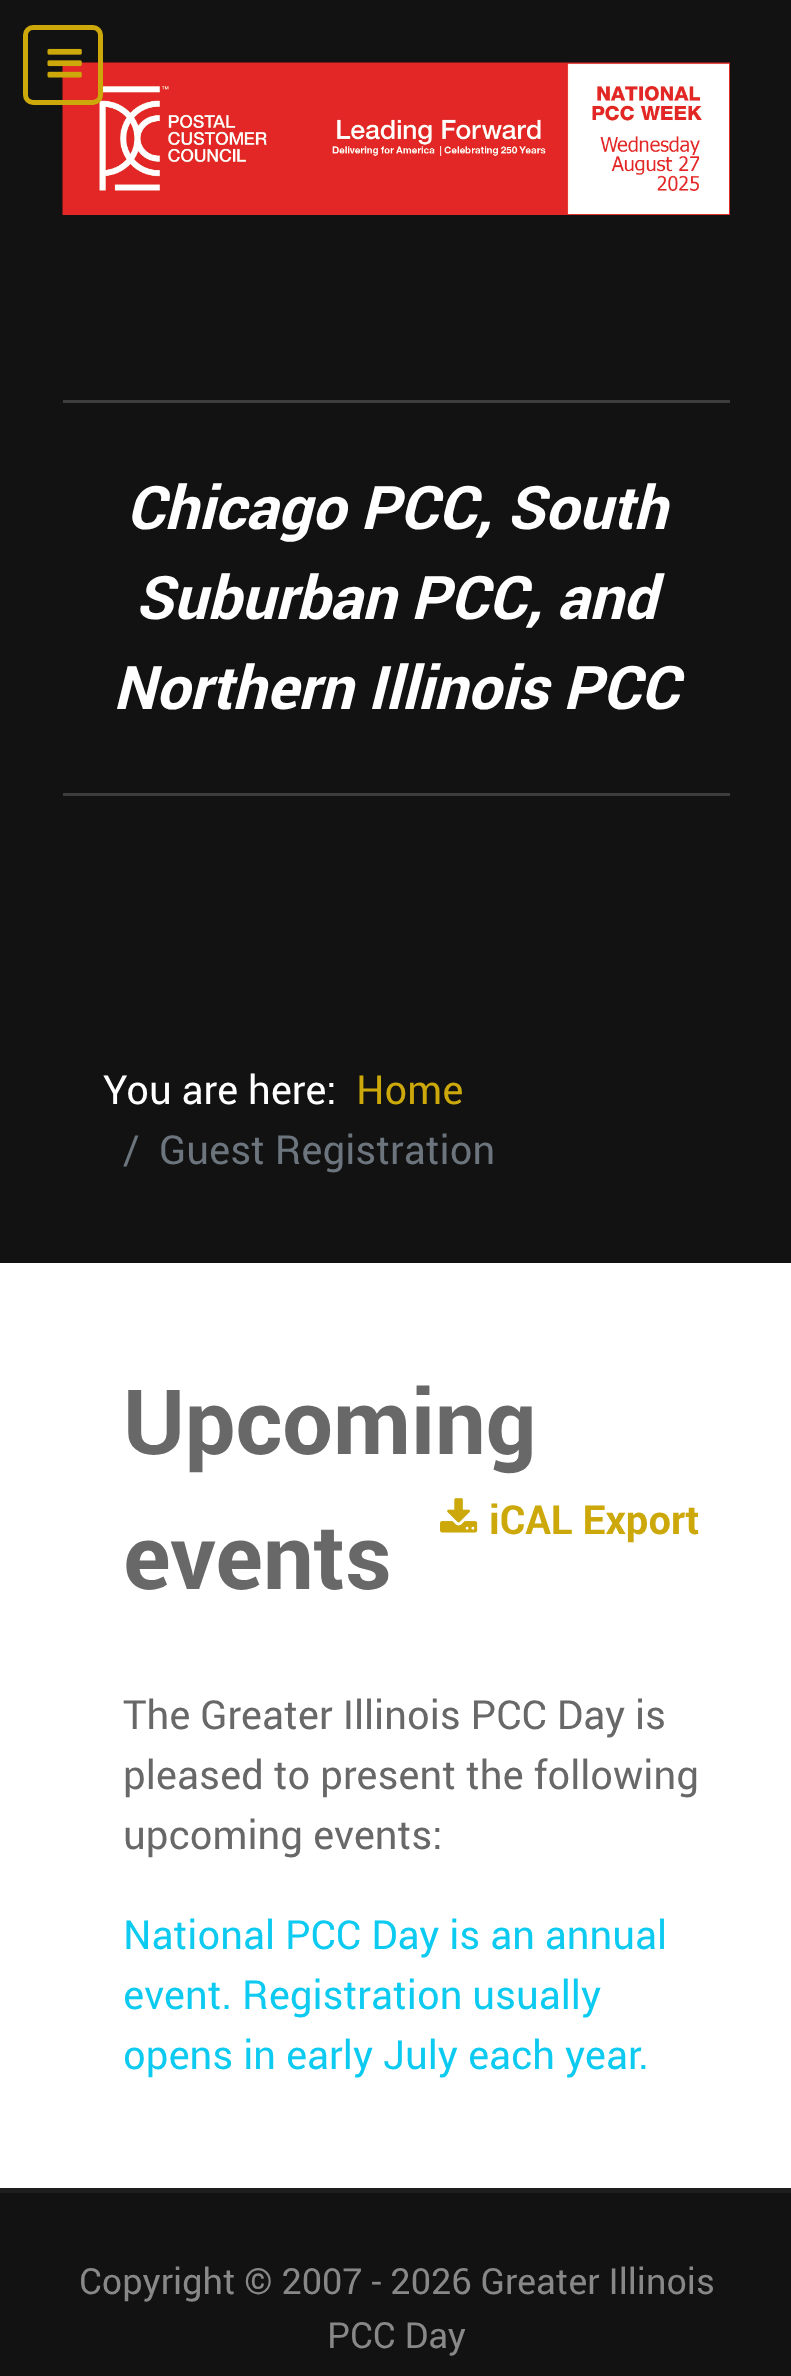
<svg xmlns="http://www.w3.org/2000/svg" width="791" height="2376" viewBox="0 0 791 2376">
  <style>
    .t1 { font: italic bold 60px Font; fill: #fff; }
    .t2 { font: 40px Font; fill: #fff; }
    .t3 { font: 40px Font; fill: #cca80a; }
    .t4 { font: 40px Font; fill: #6c757d; }
    .t5 { font: bold 90px Font; fill: #686868; }
    .t6 { font: bold 40px Font; fill: #cca80a; }
    .t7 { font: 40px Font; fill: #686868; }
    .t8 { font: 40px Font; fill: #0dcaf0; }
    .t9 { font: 36px Font; fill: #888; }
  </style>
  <rect width="100%" height="100%" fill="#fff"/>
  <rect x="0" y="0" width="791" height="1263" fill="#121212"/>
  <image x="62" y="62" width="668" height="153" href="images/2.png"/>
  <rect x="25.5" y="27.5" width="75" height="75" rx="7.5" fill="none" stroke="#cca80a" stroke-width="5"/>
  <image x="47" y="48" width="35" height="30" href="images/1.png"/>
  <rect x="63" y="400" width="667" height="3" fill="#3d3d3d"/>
  <text x="126" y="529" class="t1">Chicago PCC, South</text>
  <text x="135" y="619" class="t1">Suburban PCC, and</text>
  <text x="113" y="709" class="t1">Northern Illinois PCC</text>
  <rect x="63" y="793" width="667" height="3" fill="#3d3d3d"/>
  <text x="103" y="1104" class="t2">You are here:</text>
  <text x="356" y="1104" class="t3">Home</text>
  <text x="123" y="1164" class="t4">/</text>
  <text x="159" y="1164" class="t4">Guest Registration</text>
  <text x="123" y="1454" class="t5">Upcoming</text>
  <image x="440" y="1498" width="38" height="35" href="images/3.png"/>
  <text x="489" y="1534" class="t6">iCAL Export</text>
  <text x="123" y="1589" class="t5">events</text>
  <text x="123" y="1729" class="t7">The Greater Illinois PCC Day is</text>
  <text x="123" y="1789" class="t7">pleased to present the following</text>
  <text x="123" y="1849" class="t7">upcoming events:</text>
  <text x="123" y="1949" class="t8">National PCC Day is an annual</text>
  <text x="123" y="2009" class="t8">event. Registration usually</text>
  <text x="123" y="2069" class="t8">opens in early July each year.</text>
  <rect x="0" y="2193" width="791" height="183" fill="#121212"/>
  <rect x="0" y="2188" width="791" height="5" fill="#1e1e1e"/>
  <text x="79" y="2294" class="t9">Copyright © 2007 - 2026 Greater Illinois</text>
  <text x="327" y="2348" class="t9">PCC Day</text>
</svg>
